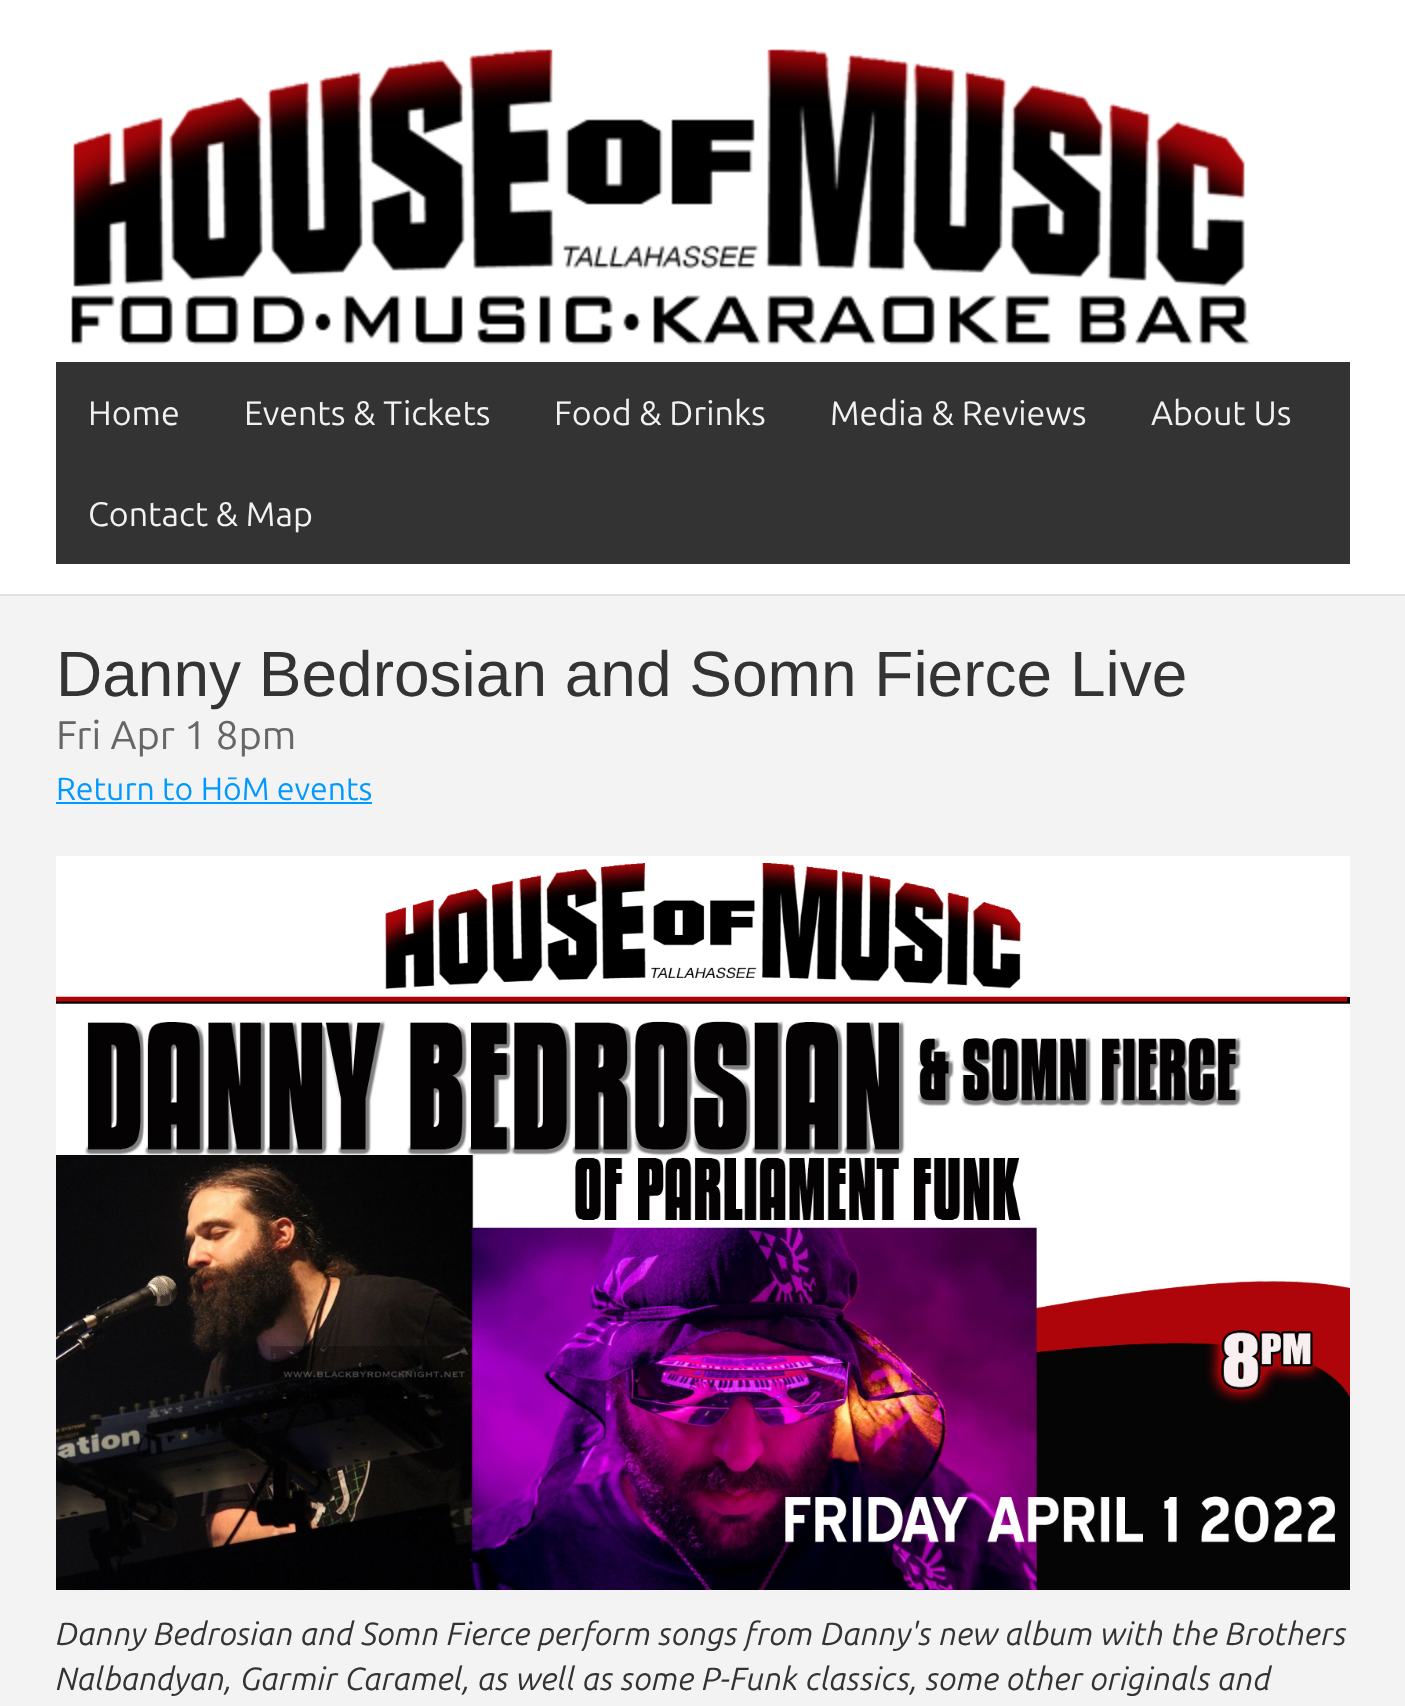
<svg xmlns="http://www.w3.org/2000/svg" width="1405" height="1706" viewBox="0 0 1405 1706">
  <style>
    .t1 { font: 34px Ubuntu; fill: #f2f2f2; }
    .t2 { font: 64px Liberation Sans; fill: #333; }
    .t3 { font: 40px Ubuntu; fill: #666; }
    .t4 { font: 32px Ubuntu; fill: #09f; }
    .t5 { font: italic 32px Ubuntu; fill: #333; }
  </style>
  <rect width="100%" height="100%" fill="#fff"/>
  <image x="71" y="49" width="1180" height="296" href="images/1.png"/>
  <rect x="56" y="362" width="1294" height="202" fill="#333"/>
  <text x="88" y="425" class="t1">Home</text>
  <text x="244" y="425" class="t1">Events &amp; Tickets</text>
  <text x="554" y="425" class="t1">Food &amp; Drinks</text>
  <text x="830" y="425" class="t1">Media &amp; Reviews</text>
  <text x="1151" y="425" class="t1">About Us</text>
  <text x="88" y="526" class="t1">Contact &amp; Map</text>
  <rect x="0" y="596" width="1405" height="1110" fill="#f3f3f3"/>
  <rect x="0" y="594" width="1405" height="2" fill="#e2e2e2"/>
  <text x="56" y="696" class="t2">Danny Bedrosian and Somn Fierce Live</text>
  <text x="56" y="749" class="t3">Fri Apr 1 8pm</text>
  <text x="56" y="800" class="t4">Return to HōM events</text>
  <rect x="56" y="802" width="316" height="2" fill="#09f"/>
  <image x="56" y="856" width="1294" height="734" href="images/2.png"/>
  <text x="56" y="1645" class="t5">Danny Bedrosian and Somn Fierce perform songs from Danny's new album with the Brothers</text>
  <text x="56" y="1690" class="t5">Nalbandyan, Garmir Caramel, as well as some P-Funk classics, some other originals and</text>
</svg>
